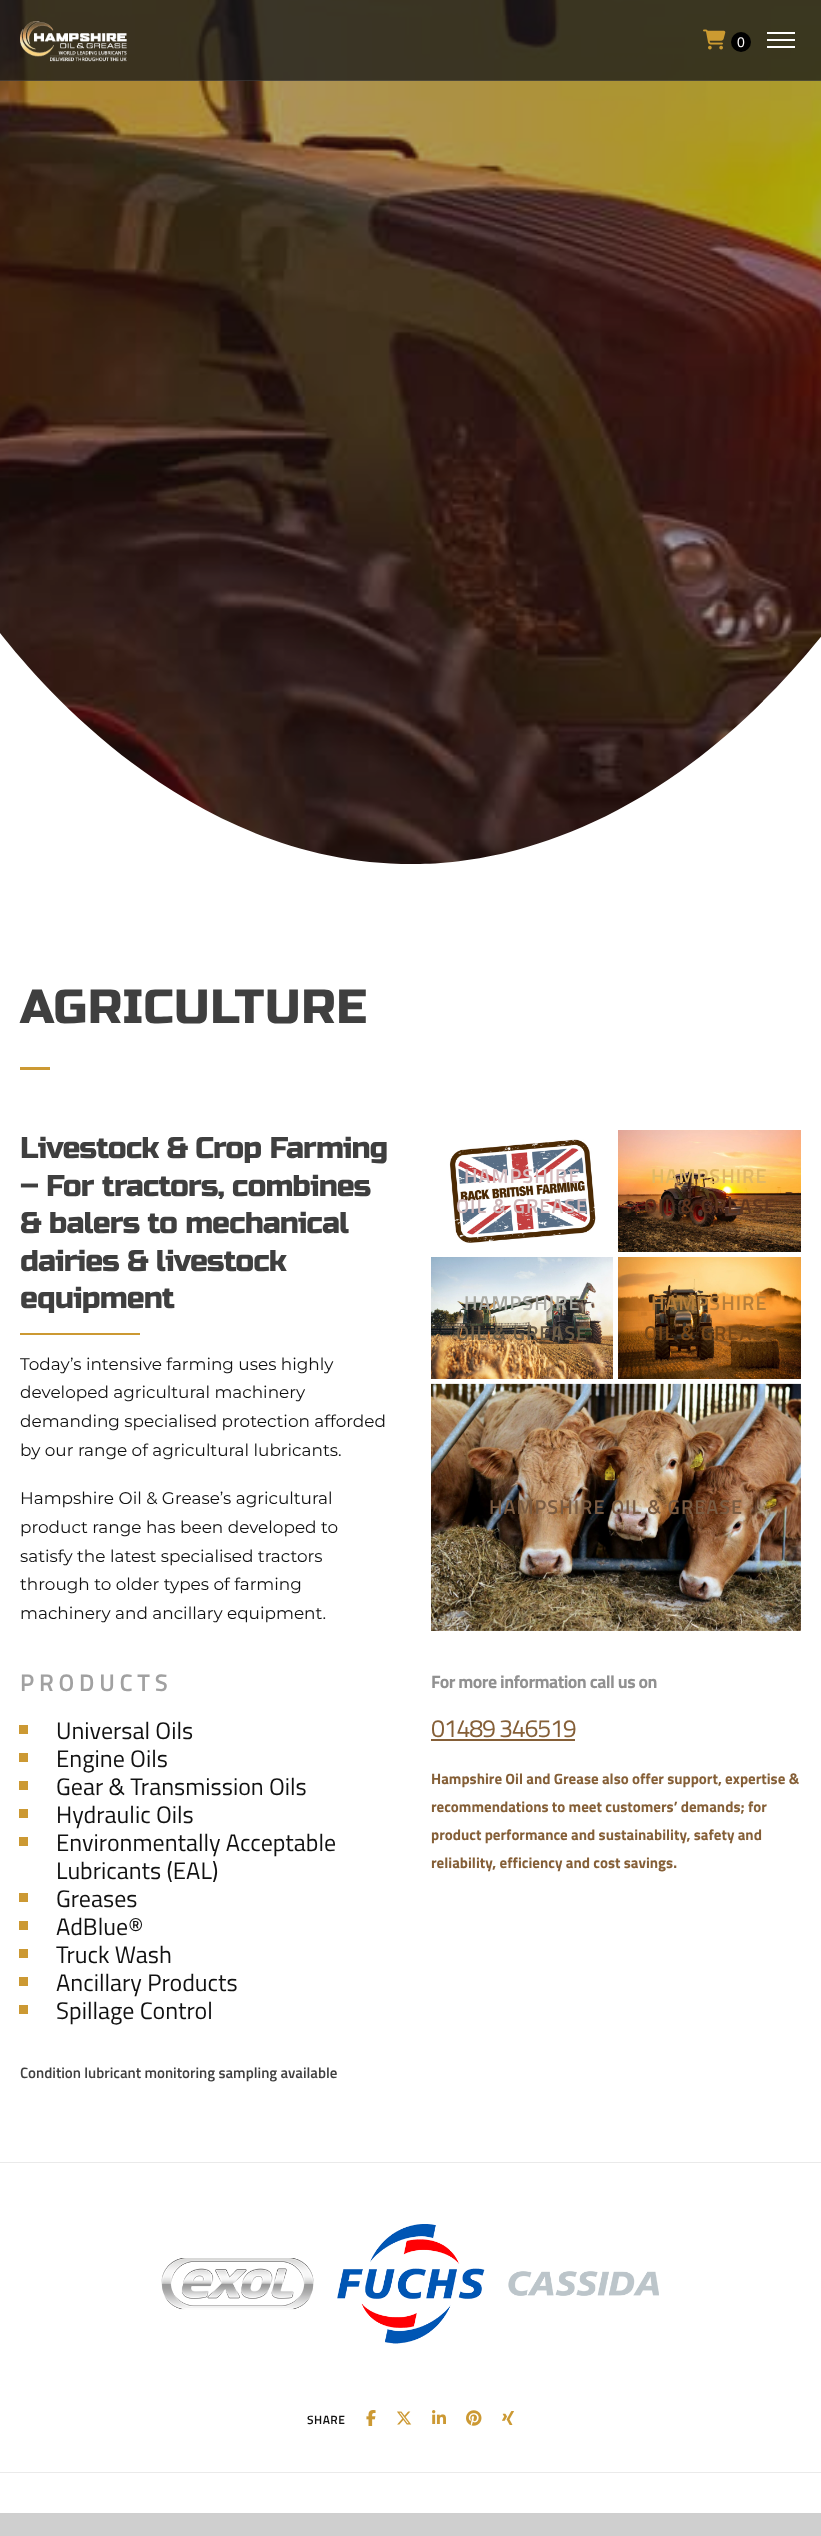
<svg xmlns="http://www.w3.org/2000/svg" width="821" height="2536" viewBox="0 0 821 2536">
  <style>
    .t1 { font: 14px Liberation Sans; fill: #fffcfc; }
    .t2 { font: 48px Russo One; letter-spacing: 0.5px; fill: #3f3f3f; }
    .t3 { font: 30px Russo One; letter-spacing: -0.9px; fill: #3f3f3f; }
    .t4 { font: 16.9px Montserrat; fill: #111; }
    .t5 { font: 600 24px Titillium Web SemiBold; letter-spacing: 4.75px; fill: #a1a1a1; }
    .t6 { font: 24px Titillium Web; fill: #111; }
    .t7 { font: 600 15px Titillium Web SemiBold; fill: #3f3f3f; }
    .t8 { font: 600 20px Titillium Web SemiBold; letter-spacing: 1px; fill: #d5bcbf; }
    .t9 { font: 600 20px Titillium Web SemiBold; letter-spacing: 1px; fill: #cdb6b8; }
    .t10 { font: 600 20px Titillium Web SemiBold; letter-spacing: 1px; fill: #e1b866; }
    .t11 { font: 600 20px Titillium Web SemiBold; letter-spacing: 1px; fill: #5d341e; }
    .t12 { font: 600 20px Titillium Web SemiBold; letter-spacing: 1px; fill: #a9a9a2; }
    .t13 { font: 600 20px Titillium Web SemiBold; letter-spacing: 1px; fill: #6b5c47; }
    .t14 { font: 600 20px Titillium Web SemiBold; letter-spacing: 1px; fill: #b67e3a; }
    .t15 { font: 600 20px Titillium Web SemiBold; letter-spacing: 1px; fill: #784818; }
    .t16 { font: 600 20px Titillium Web SemiBold; letter-spacing: 1px; fill: #795b42; }
    .t17 { font: bold 18px Titillium Web; letter-spacing: -0.55px; fill: #919191; }
    .t18 { font: 25px Titillium Web; letter-spacing: -1.25px; fill: #855f37; }
    .t19 { font: bold 15px Titillium Web; fill: #855f37; }
    .t20 { font: 600 12px Titillium Web SemiBold; letter-spacing: 0.5px; fill: #111; }
  </style>
  <defs>
    <clipPath id="clip1"><rect x="0" y="631" width="821" height="253"/></clipPath>
  </defs>
  <rect width="100%" height="100%" fill="#fff"/>
  <image x="0" y="0" width="821" height="864" href="images/1.png"/>
  <g clip-path="url(#clip1)">
    <path d="M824 886H0V633C49 695 198 864 412 864C473 864 650 850 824 633Z" fill="#fff"/>
  </g>
  <rect x="0" y="0" width="821" height="81" fill="#141618bf"/>
  <rect x="0" y="80" width="821" height="1" fill="#ffffff1a"/>
  <image x="20" y="21" width="107" height="41" href="images/2.png"/>
  <image x="703" y="29" width="23" height="21" href="images/3.png"/>
  <circle cx="741" cy="42" r="10" fill="#000"/>
  <text x="737" y="47" class="t1">0</text>
  <rect x="767" y="39" width="28" height="2" fill="#fff"/>
  <rect x="767" y="32" width="28" height="2" fill="#fff"/>
  <rect x="767" y="46" width="28" height="2" fill="#fff"/>
  <text x="20" y="1023" class="t2">AGRICULTURE</text>
  <rect x="20" y="1067" width="30" height="3" fill="#c93"/>
  <text x="20" y="1158" class="t3">Livestock &amp; Crop Farming</text>
  <text x="20" y="1196" class="t3">– For tractors, combines</text>
  <text x="20" y="1233" class="t3">&amp; balers to mechanical</text>
  <text x="20" y="1271" class="t3">dairies &amp; livestock</text>
  <text x="20" y="1308" class="t3">equipment</text>
  <rect x="20" y="1333" width="120" height="2" fill="#c93"/>
  <text x="20" y="1370" class="t4">Today’s intensive farming uses highly</text>
  <text x="20" y="1398" class="t4">developed agricultural machinery</text>
  <text x="20" y="1427" class="t4">demanding specialised protection afforded</text>
  <text x="20" y="1456" class="t4">by our range of agricultural lubricants.</text>
  <text x="20" y="1504" class="t4">Hampshire Oil &amp; Grease’s agricultural</text>
  <text x="20" y="1533" class="t4">product range has been developed to</text>
  <text x="20" y="1562" class="t4">satisfy the latest specialised tractors</text>
  <text x="20" y="1590" class="t4">through to older types of farming</text>
  <text x="20" y="1619" class="t4">machinery and ancillary equipment.</text>
  <text x="20" y="1691" class="t5">PRODUCTS</text>
  <rect x="19" y="1725" width="9" height="9" fill="#c93"/>
  <text x="56" y="1739" class="t6">Universal Oils</text>
  <rect x="19" y="1753" width="9" height="9" fill="#c93"/>
  <text x="56" y="1767" class="t6">Engine Oils</text>
  <rect x="19" y="1781" width="9" height="9" fill="#c93"/>
  <text x="56" y="1795" class="t6">Gear &amp; Transmission Oils</text>
  <rect x="19" y="1809" width="9" height="9" fill="#c93"/>
  <text x="56" y="1823" class="t6">Hydraulic Oils</text>
  <rect x="19" y="1837" width="9" height="9" fill="#c93"/>
  <text x="56" y="1851" class="t6">Environmentally Acceptable</text>
  <text x="56" y="1879" class="t6">Lubricants (EAL)</text>
  <rect x="19" y="1893" width="9" height="9" fill="#c93"/>
  <text x="56" y="1907" class="t6">Greases</text>
  <rect x="19" y="1921" width="9" height="9" fill="#c93"/>
  <text x="56" y="1935" class="t6">AdBlue®</text>
  <rect x="19" y="1949" width="9" height="9" fill="#c93"/>
  <text x="56" y="1963" class="t6">Truck Wash</text>
  <rect x="19" y="1977" width="9" height="9" fill="#c93"/>
  <text x="56" y="1991" class="t6">Ancillary Products</text>
  <rect x="19" y="2005" width="9" height="9" fill="#c93"/>
  <text x="56" y="2019" class="t6">Spillage Control</text>
  <text x="20" y="2078" class="t7">Condition lubricant monitoring sampling available</text>
  <image x="449" y="1139" width="147" height="104" href="images/4.png"/>
  <text x="464" y="1183" class="t8">HAMPSHIRE</text>
  <text x="456" y="1213" class="t9">OIL &amp; GREASE</text>
  <image x="618" y="1130" width="183" height="122" href="images/5.png"/>
  <text x="651" y="1183" class="t10">HAMPSHIRE</text>
  <text x="644" y="1213" class="t11">OIL &amp; GREASE</text>
  <image x="431" y="1257" width="182" height="122" href="images/6.png"/>
  <text x="464" y="1310" class="t12">HAMPSHIRE</text>
  <text x="456" y="1340" class="t13">OIL &amp; GREASE</text>
  <image x="618" y="1257" width="183" height="122" href="images/7.png"/>
  <text x="651" y="1310" class="t14">HAMPSHIRE</text>
  <text x="644" y="1340" class="t15">OIL &amp; GREASE</text>
  <image x="431" y="1383" width="370" height="248" href="images/8.png"/>
  <text x="489" y="1514" class="t16">HAMPSHIRE OIL &amp; GREASE</text>
  <text x="431" y="1688" class="t17">For more information call us on</text>
  <text x="431" y="1737" class="t18">01489 346519</text>
  <rect x="431" y="1739" width="144" height="2" fill="#855f37"/>
  <text x="431" y="1784" class="t19">Hampshire Oil and Grease also offer support, expertise &amp;</text>
  <text x="431" y="1812" class="t19">recommendations to meet customers’ demands; for</text>
  <text x="431" y="1840" class="t19">product performance and sustainability, safety and</text>
  <text x="431" y="1868" class="t19">reliability, efficiency and cost savings.</text>
  <rect x="0" y="2162" width="821" height="1" fill="#eaeaea"/>
  <rect x="0" y="2472" width="821" height="1" fill="#eaeaea"/>
  <image x="161" y="2258" width="153" height="52" href="images/9.png"/>
  <image x="337" y="2224" width="148" height="120" href="images/10.png"/>
  <image x="508" y="2271" width="151" height="25" href="images/11.png"/>
  <text x="307" y="2424" class="t20">SHARE</text>
  <image x="366" y="2410" width="10" height="16" href="images/12.png"/>
  <image x="397" y="2411" width="15" height="14" href="images/13.png"/>
  <image x="432" y="2410" width="14" height="14" href="images/14.png"/>
  <image x="466" y="2410" width="16" height="16" href="images/15.png"/>
  <image x="502" y="2411" width="12" height="14" href="images/16.png"/>
  <rect x="0" y="2513" width="821" height="23" fill="#cfcfcf"/>
</svg>
